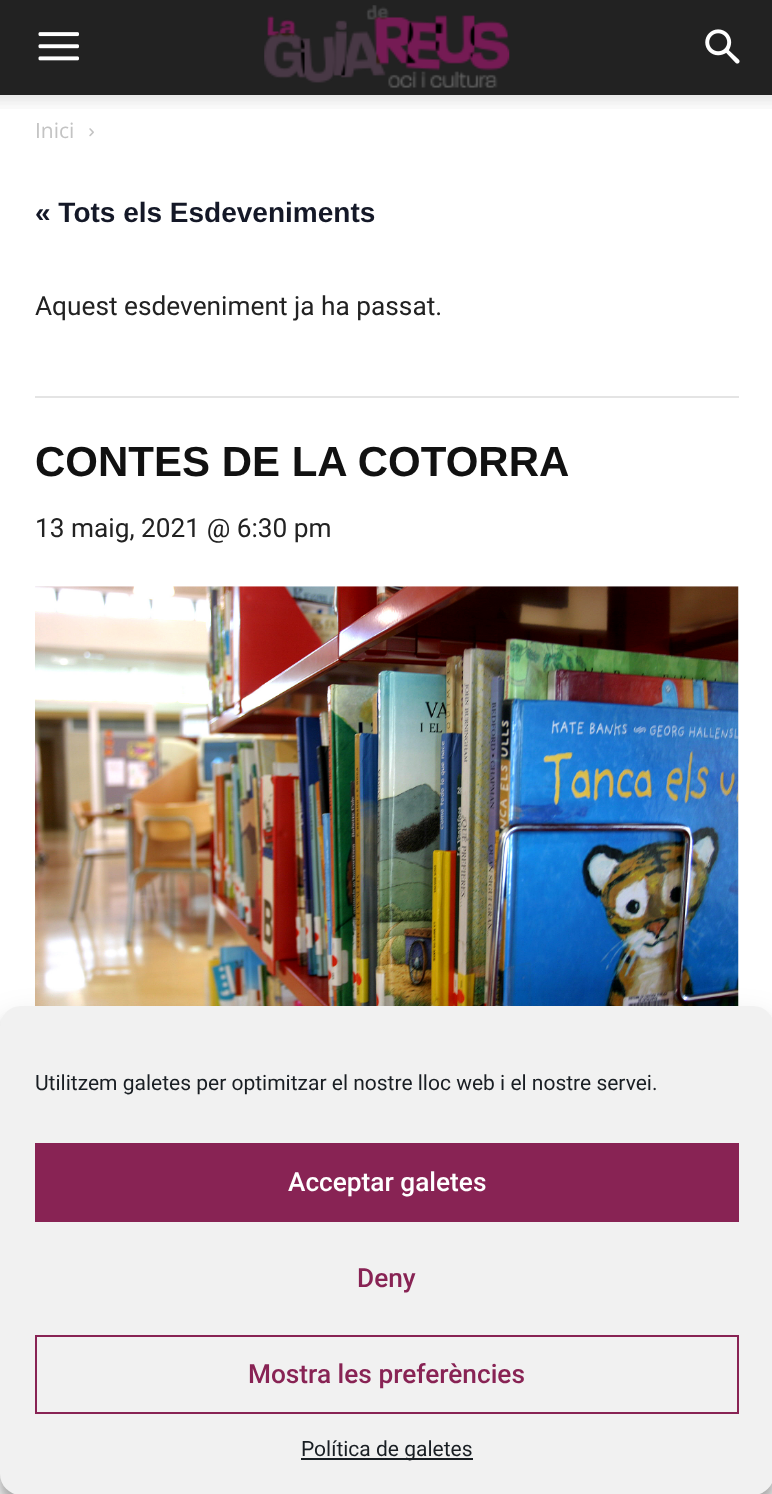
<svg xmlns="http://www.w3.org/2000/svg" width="772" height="1494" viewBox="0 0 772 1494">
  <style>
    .t1 { font: 21px Open Sans; fill: #c3c3c3; }
    .t2 { font: bold 28px Liberation Sans; fill: #141827; }
    .t3 { font: 26.25px Roboto; fill: #222; }
    .t4 { font: bold 42px Liberation Sans; fill: #111; }
    .t5 { font: 21px Roboto; fill: #191e23; }
    .t6 { font: 500 26.25px Roboto; fill: #fff; }
    .t7 { font: 500 26.25px Roboto; fill: #882354; }
  </style>
  <rect width="100%" height="100%" fill="#fff"/>
  <rect x="0" y="0" width="772" height="95" fill="#222"/>
  <image x="38" y="32" width="41" height="29" href="images/1.png"/>
  <image x="264" y="5" width="246" height="83" href="images/2.png"/>
  <image x="705" y="29" width="35" height="35" href="images/3.png"/>
  <image x="0" y="95" width="772" height="14" href="images/4.png"/>
  <text x="35" y="138" class="t1">Inici</text>
  <image x="89" y="128" width="5" height="9" href="images/5.png"/>
  <text x="35" y="222" class="t2">« Tots els Esdeveniments</text>
  <rect x="35" y="396" width="704" height="2" fill="#e4e4e4"/>
  <text x="35" y="315" class="t3">Aquest esdeveniment ja ha passat.</text>
  <text x="35" y="476" class="t4">CONTES DE LA COTORRA</text>
  <text x="35" y="537" class="t3">13 maig, 2021 @ 6:30 pm</text>
  <image x="35" y="586" width="704" height="420" href="images/6.png"/>
  <rect x="0" y="1017" width="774" height="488" rx="21" fill="#0000003b" filter="blur(5px)"/>
  <rect x="0" y="1024" width="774" height="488" rx="21" fill="#00000030" filter="blur(17.5px)"/>
  <rect x="0" y="1006" width="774" height="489" rx="21" fill="#f1f1f1"/>
  <text x="35" y="1090" class="t5">Utilitzem galetes per optimitzar el nostre lloc web i el nostre servei.</text>
  <rect x="35" y="1143" width="704" height="79" fill="#882354"/>
  <text x="288" y="1191" class="t6">Acceptar galetes</text>
  <text x="357" y="1287" class="t7">Deny</text>
  <rect x="36" y="1336" width="702" height="77" fill="none" stroke="#882354" stroke-width="2"/>
  <text x="248" y="1383" class="t7">Mostra les preferències</text>
  <rect x="301" y="1458" width="172" height="2" fill="#191e23"/>
  <text x="301" y="1456" class="t5">Política de galetes</text>
</svg>
